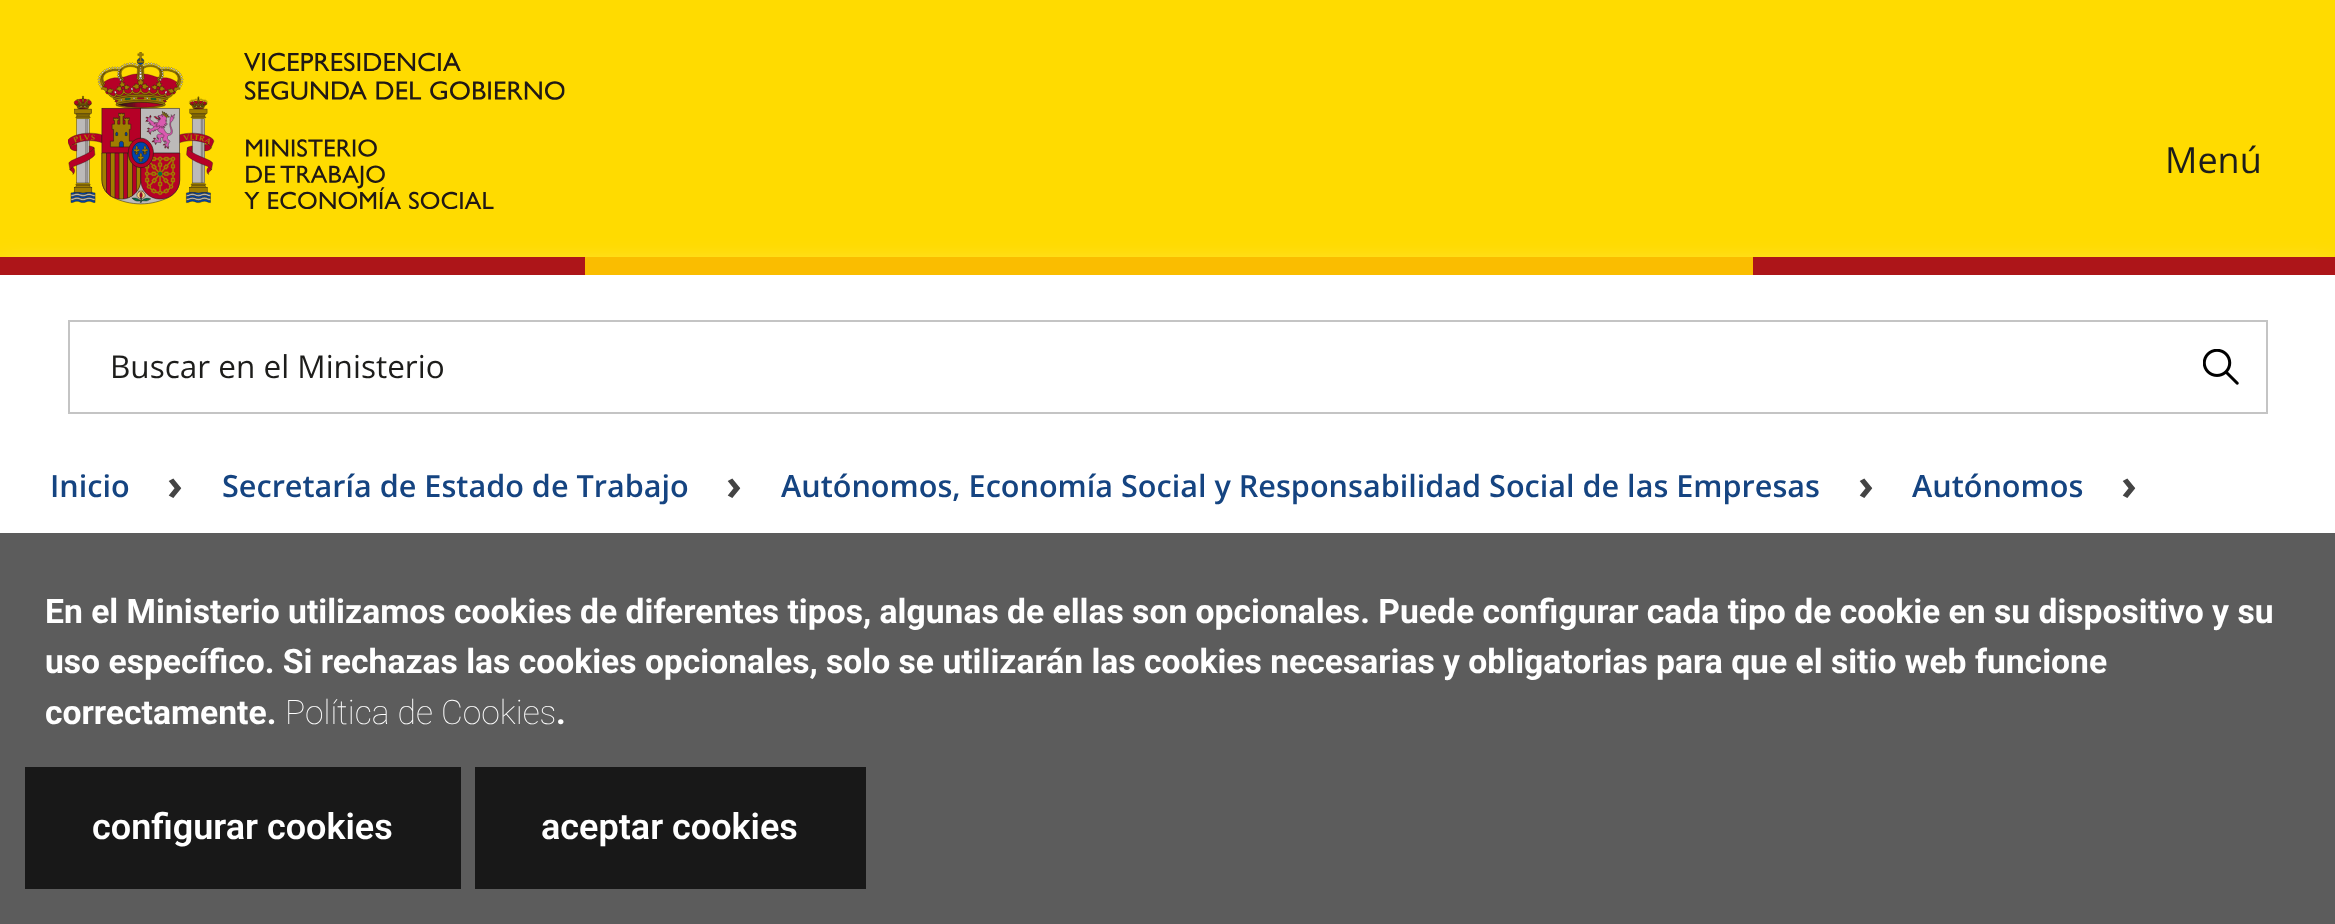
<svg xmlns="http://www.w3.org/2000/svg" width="2335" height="924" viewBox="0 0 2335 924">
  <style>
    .t1 { font: 36px Open Sans; fill: #1d1d1b; }
    .t2 { font: 31.5px Open Sans; fill: #1d1d1b; }
    .t3 { font: 600 30.6px Open Sans; fill: #154481; }
    .t4 { font: bold 43px Open Sans; fill: #444; }
    .t5 { font: bold 33.65px Roboto; fill: #fff; }
    .t6 { font: 100 33.65px Roboto; fill: #fff; }
    .t7 { font: 600 36px Roboto; fill: #fff; }
  </style>
  <rect width="100%" height="100%" fill="#fff"/>
  <rect x="0" y="0" width="2335" height="257" fill="#ffdb00"/>
  <image x="68" y="52" width="497" height="157" href="images/1.png"/>
  <text x="2165" y="173" class="t1">Menú</text>
  <rect x="0" y="279" width="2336" height="18" fill="#fff" filter="blur(17px)"/>
  <rect x="0" y="257" width="585" height="18" fill="#ad1519"/>
  <rect x="585" y="257" width="1168" height="18" fill="#fabd00"/>
  <rect x="1753" y="257" width="582" height="18" fill="#ad1519"/>
  <rect x="69" y="321" width="2198" height="92" fill="none" stroke="#c4c4c4" stroke-width="2"/>
  <text x="110" y="378" class="t2">Buscar en el Ministerio</text>
  <image x="2203" y="349" width="36" height="36" href="images/2.png"/>
  <text x="50" y="497" class="t3">Inicio</text>
  <text x="167" y="500" class="t4">›</text>
  <text x="222" y="497" class="t3">Secretaría de Estado de Trabajo</text>
  <text x="726" y="500" class="t4">›</text>
  <text x="781" y="497" class="t3">Autónomos, Economía Social y Responsabilidad Social de las Empresas</text>
  <text x="1858" y="500" class="t4">›</text>
  <text x="1912" y="497" class="t3">Autónomos</text>
  <text x="2121" y="500" class="t4">›</text>
  <rect x="0" y="533" width="2335" height="391" fill="#5c5c5c"/>
  <text x="45" y="623" class="t5">En el Ministerio utilizamos cookies de diferentes tipos, algunas de ellas son opcionales. Puede configurar cada tipo de cookie en su dispositivo y su</text>
  <text x="45" y="673" class="t5">uso específico. Si rechazas las cookies opcionales, solo se utilizarán las cookies necesarias y obligatorias para que el sitio web funcione</text>
  <text x="45" y="724" class="t5">correctamente.</text>
  <text x="285" y="724" class="t6">Política de Cookies</text>
  <text x="556" y="724" class="t5">.</text>
  <rect x="25" y="767" width="436" height="122" fill="#181818"/>
  <text x="92" y="839" class="t7">configurar cookies</text>
  <rect x="475" y="767" width="391" height="122" fill="#181818"/>
  <text x="541" y="839" class="t7">aceptar cookies</text>
</svg>
